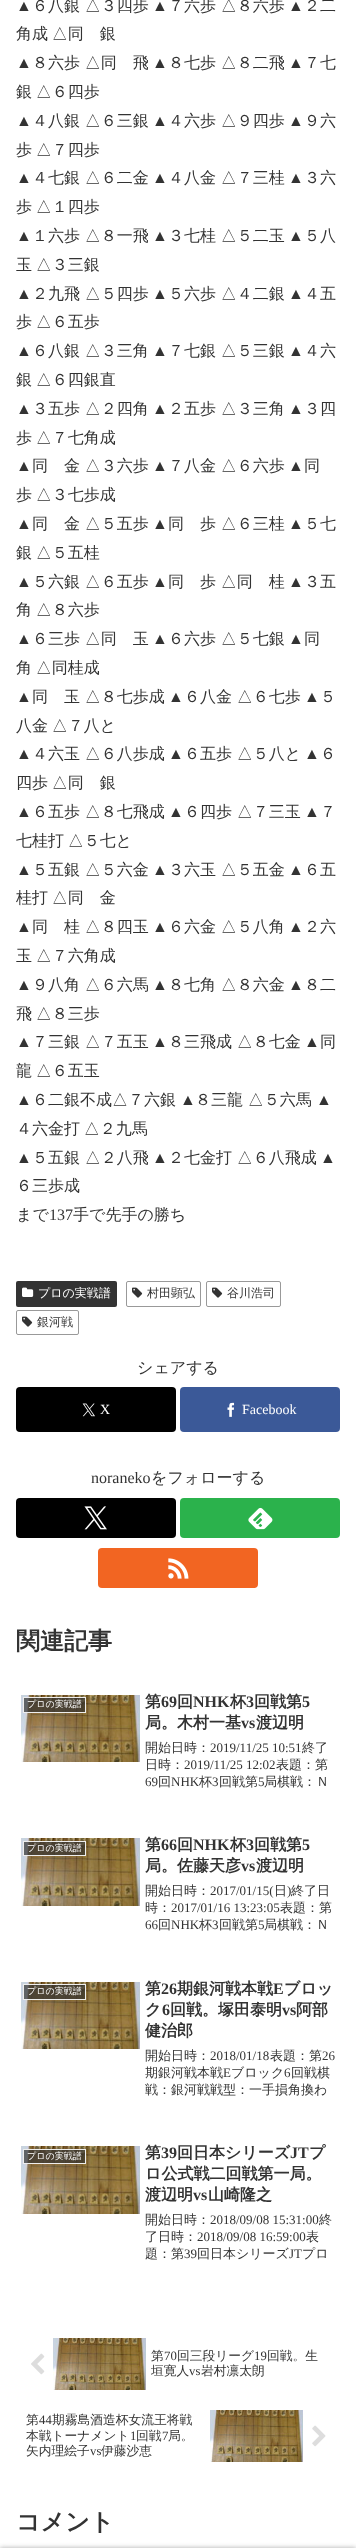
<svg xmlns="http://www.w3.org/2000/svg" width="356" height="2548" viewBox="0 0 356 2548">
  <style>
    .t1 { font: 16px Liberation Serif; fill: #333; }
    .t2 { font: 500 16px WenQuanYi Zen Hei; fill: #333; }
    .t3 { font: 500 12px WenQuanYi Zen Hei; fill: #fff; }
    .t4 { font: 500 12px WenQuanYi Zen Hei; fill: #333; }
    .t5 { font: 14px Liberation Serif; fill: #fff; }
    .t6 { font: bold 24px WenQuanYi Zen Hei; fill: #333; }
    .t7 { font: 500 9px WenQuanYi Zen Hei; fill: #fff; }
    .t8 { font: bold 16px WenQuanYi Zen Hei; fill: #333; }
    .t9 { font: bold 16px Liberation Serif; fill: #333; }
    .t10 { font: 500 13px WenQuanYi Zen Hei; fill: #333; }
    .t11 { font: 13px Liberation Serif; fill: #333; }
    .t12 { font: 500 12.75px WenQuanYi Zen Hei; fill: #333; }
    .t13 { font: 12.75px Liberation Serif; fill: #333; }
  </style>
  <rect width="100%" height="100%" fill="#fff"/>
  <text x="16" y="11" class="t1">▲</text>
  <text x="32" y="11" class="t2">６八銀 △３四歩</text>
  <text x="152" y="11" class="t1">▲</text>
  <text x="168" y="11" class="t2">７六歩 △８六歩</text>
  <text x="288" y="11" class="t1">▲</text>
  <text x="304" y="11" class="t2">２二</text>
  <text x="16" y="39" word-spacing="-1" class="t2">角成 △同　銀</text>
  <text x="16" y="68" class="t1">▲</text>
  <text x="32" y="68" class="t2">８六歩 △同　飛</text>
  <text x="152" y="68" class="t1">▲</text>
  <text x="168" y="68" class="t2">８七歩 △８二飛</text>
  <text x="288" y="68" class="t1">▲</text>
  <text x="304" y="68" class="t2">７七</text>
  <text x="16" y="97" word-spacing="-1" class="t2">銀 △６四歩</text>
  <text x="16" y="126" class="t1">▲</text>
  <text x="32" y="126" class="t2">４八銀 △６三銀</text>
  <text x="152" y="126" class="t1">▲</text>
  <text x="168" y="126" class="t2">４六歩 △９四歩</text>
  <text x="288" y="126" class="t1">▲</text>
  <text x="304" y="126" class="t2">９六</text>
  <text x="16" y="155" word-spacing="-1" class="t2">歩 △７四歩</text>
  <text x="16" y="183" class="t1">▲</text>
  <text x="32" y="183" class="t2">４七銀 △６二金</text>
  <text x="152" y="183" class="t1">▲</text>
  <text x="168" y="183" class="t2">４八金 △７三桂</text>
  <text x="288" y="183" class="t1">▲</text>
  <text x="304" y="183" class="t2">３六</text>
  <text x="16" y="212" word-spacing="-1" class="t2">歩 △１四歩</text>
  <text x="16" y="241" class="t1">▲</text>
  <text x="32" y="241" class="t2">１六歩 △８一飛</text>
  <text x="152" y="241" class="t1">▲</text>
  <text x="168" y="241" class="t2">３七桂 △５二玉</text>
  <text x="288" y="241" class="t1">▲</text>
  <text x="304" y="241" class="t2">５八</text>
  <text x="16" y="270" word-spacing="-1" class="t2">玉 △３三銀</text>
  <text x="16" y="299" class="t1">▲</text>
  <text x="32" y="299" class="t2">２九飛 △５四歩</text>
  <text x="152" y="299" class="t1">▲</text>
  <text x="168" y="299" class="t2">５六歩 △４二銀</text>
  <text x="288" y="299" class="t1">▲</text>
  <text x="304" y="299" class="t2">４五</text>
  <text x="16" y="327" word-spacing="-1" class="t2">歩 △６五歩</text>
  <text x="16" y="356" class="t1">▲</text>
  <text x="32" y="356" class="t2">６八銀 △３三角</text>
  <text x="152" y="356" class="t1">▲</text>
  <text x="168" y="356" class="t2">７七銀 △５三銀</text>
  <text x="288" y="356" class="t1">▲</text>
  <text x="304" y="356" class="t2">４六</text>
  <text x="16" y="385" word-spacing="-1" class="t2">銀 △６四銀直</text>
  <text x="16" y="414" class="t1">▲</text>
  <text x="32" y="414" class="t2">３五歩 △２四角</text>
  <text x="152" y="414" class="t1">▲</text>
  <text x="168" y="414" class="t2">２五歩 △３三角</text>
  <text x="288" y="414" class="t1">▲</text>
  <text x="304" y="414" class="t2">３四</text>
  <text x="16" y="443" word-spacing="-1" class="t2">歩 △７七角成</text>
  <text x="16" y="471" class="t1">▲</text>
  <text x="32" y="471" class="t2">同　金 △３六歩</text>
  <text x="152" y="471" class="t1">▲</text>
  <text x="168" y="471" class="t2">７八金 △６六歩</text>
  <text x="288" y="471" class="t1">▲</text>
  <text x="304" y="471" class="t2">同</text>
  <text x="16" y="500" word-spacing="-1" class="t2">歩 △３七歩成</text>
  <text x="16" y="529" class="t1">▲</text>
  <text x="32" y="529" class="t2">同　金 △５五歩</text>
  <text x="152" y="529" class="t1">▲</text>
  <text x="168" y="529" class="t2">同　歩 △６三桂</text>
  <text x="288" y="529" class="t1">▲</text>
  <text x="304" y="529" class="t2">５七</text>
  <text x="16" y="558" word-spacing="-1" class="t2">銀 △５五桂</text>
  <text x="16" y="587" class="t1">▲</text>
  <text x="32" y="587" class="t2">５六銀 △６五歩</text>
  <text x="152" y="587" class="t1">▲</text>
  <text x="168" y="587" class="t2">同　歩 △同　桂</text>
  <text x="288" y="587" class="t1">▲</text>
  <text x="304" y="587" class="t2">３五</text>
  <text x="16" y="615" word-spacing="-1" class="t2">角 △８六歩</text>
  <text x="16" y="644" class="t1">▲</text>
  <text x="32" y="644" class="t2">６三歩 △同　玉</text>
  <text x="152" y="644" class="t1">▲</text>
  <text x="168" y="644" class="t2">６六歩 △５七銀</text>
  <text x="288" y="644" class="t1">▲</text>
  <text x="304" y="644" class="t2">同</text>
  <text x="16" y="673" word-spacing="-1" class="t2">角 △同桂成</text>
  <text x="16" y="702" class="t1">▲</text>
  <text x="32" y="702" class="t2">同　玉 △８七歩成</text>
  <text x="168" y="702" class="t1">▲</text>
  <text x="184" y="702" class="t2">６八金 △６七歩</text>
  <text x="304" y="702" class="t1">▲</text>
  <text x="320" y="702" class="t2">５</text>
  <text x="16" y="731" word-spacing="-1" class="t2">八金 △７八と</text>
  <text x="16" y="759" class="t1">▲</text>
  <text x="32" y="759" class="t2">４六玉 △６八歩成</text>
  <text x="168" y="759" class="t1">▲</text>
  <text x="184" y="759" class="t2">６五歩 △５八と</text>
  <text x="304" y="759" class="t1">▲</text>
  <text x="320" y="759" class="t2">６</text>
  <text x="16" y="788" word-spacing="-1" class="t2">四歩 △同　銀</text>
  <text x="16" y="817" class="t1">▲</text>
  <text x="32" y="817" class="t2">６五歩 △８七飛成</text>
  <text x="168" y="817" class="t1">▲</text>
  <text x="184" y="817" class="t2">６四歩 △７三玉</text>
  <text x="304" y="817" class="t1">▲</text>
  <text x="320" y="817" class="t2">７</text>
  <text x="16" y="846" word-spacing="-1" class="t2">七桂打 △５七と</text>
  <text x="16" y="875" class="t1">▲</text>
  <text x="32" y="875" class="t2">５五銀 △５六金</text>
  <text x="152" y="875" class="t1">▲</text>
  <text x="168" y="875" class="t2">３六玉 △５五金</text>
  <text x="288" y="875" class="t1">▲</text>
  <text x="304" y="875" class="t2">６五</text>
  <text x="16" y="903" word-spacing="-1" class="t2">桂打 △同　金</text>
  <text x="16" y="932" class="t1">▲</text>
  <text x="32" y="932" class="t2">同　桂 △８四玉</text>
  <text x="152" y="932" class="t1">▲</text>
  <text x="168" y="932" class="t2">６六金 △５八角</text>
  <text x="288" y="932" class="t1">▲</text>
  <text x="304" y="932" class="t2">２六</text>
  <text x="16" y="961" word-spacing="-1" class="t2">玉 △７六角成</text>
  <text x="16" y="990" class="t1">▲</text>
  <text x="32" y="990" class="t2">９八角 △６六馬</text>
  <text x="152" y="990" class="t1">▲</text>
  <text x="168" y="990" class="t2">８七角 △８六金</text>
  <text x="288" y="990" class="t1">▲</text>
  <text x="304" y="990" class="t2">８二</text>
  <text x="16" y="1019" word-spacing="-1" class="t2">飛 △８三歩</text>
  <text x="16" y="1047" class="t1">▲</text>
  <text x="32" y="1047" class="t2">７三銀 △７五玉</text>
  <text x="152" y="1047" class="t1">▲</text>
  <text x="168" y="1047" class="t2">８三飛成 △８七金</text>
  <text x="304" y="1047" class="t1">▲</text>
  <text x="320" y="1047" class="t2">同</text>
  <text x="16" y="1076" word-spacing="-1" class="t2">龍 △６五玉</text>
  <text x="16" y="1105" class="t1">▲</text>
  <text x="32" y="1105" class="t2">６二銀不成△７六銀</text>
  <text x="180" y="1105" class="t1">▲</text>
  <text x="195" y="1105" class="t2">８三龍 △５六馬</text>
  <text x="316" y="1105" class="t1">▲</text>
  <text x="16" y="1134" word-spacing="-1" class="t2">４六金打 △２九馬</text>
  <text x="16" y="1163" class="t1">▲</text>
  <text x="32" y="1163" class="t2">５五銀 △２八飛</text>
  <text x="152" y="1163" class="t1">▲</text>
  <text x="168" y="1163" class="t2">２七金打 △６八飛成</text>
  <text x="320" y="1163" class="t1">▲</text>
  <text x="16" y="1191" class="t2">６三歩成</text>
  <text x="16" y="1220" class="t2">まで</text>
  <text x="49" y="1220" class="t1">137</text>
  <text x="73" y="1220" class="t2">手で先手の勝ち</text>
  <rect x="16" y="1281" width="101" height="26" rx="2" fill="#333"/>
  <image x="22" y="1287" width="12" height="10" href="images/1.png"/>
  <text x="38" y="1297" class="t3">プロの実戦譜</text>
  <rect x="126.5" y="1281.5" width="74" height="25" rx="1.5" fill="none" stroke="#999"/>
  <image x="132" y="1287" width="11" height="11" href="images/2.png"/>
  <text x="147" y="1297" class="t4">村田顕弘</text>
  <rect x="206.5" y="1281.5" width="74" height="25" rx="1.5" fill="none" stroke="#999"/>
  <image x="212" y="1287" width="11" height="11" href="images/2.png"/>
  <text x="227" y="1297" class="t4">谷川浩司</text>
  <rect x="16.5" y="1310.5" width="62" height="24" rx="1.5" fill="none" stroke="#999"/>
  <image x="22" y="1316" width="11" height="11" href="images/2.png"/>
  <text x="37" y="1326" class="t4">銀河戦</text>
  <text x="137" y="1373" class="t2">シェアする</text>
  <rect x="16" y="1387" width="160" height="45" rx="4" fill="#000"/>
  <image x="82" y="1403" width="13" height="14" href="images/3.png"/>
  <text x="100" y="1414" class="t5">X</text>
  <rect x="180" y="1387" width="160" height="45" rx="4" fill="#3b5998"/>
  <image x="227" y="1402" width="8" height="15" href="images/4.png"/>
  <text x="242" y="1414" class="t5">Facebook</text>
  <text x="91" y="1483" class="t1">noraneko</text>
  <text x="151" y="1483" class="t2">をフォローする</text>
  <rect x="16" y="1498" width="160" height="40" rx="4" fill="#000"/>
  <image x="84" y="1506" width="23" height="24" href="images/5.png"/>
  <rect x="180" y="1498" width="160" height="40" rx="4" fill="#2bb24c"/>
  <image x="248" y="1507" width="25" height="23" href="images/6.png"/>
  <rect x="98" y="1548" width="160" height="40" rx="4" fill="#f26522"/>
  <image x="168" y="1558" width="21" height="21" href="images/7.png"/>
  <text x="16" y="1649" class="t6">関連記事</text>
  <image x="21" y="1695" width="119" height="67" href="images/8.png"/>
  <rect x="23.5" y="1697.5" width="62" height="15" fill="#333333b3" stroke="#eee"/>
  <text x="27" y="1707" class="t7">プロの実戦譜</text>
  <text x="145" y="1707" class="t8">第</text>
  <text x="161" y="1707" class="t9">69</text>
  <text x="177" y="1707" class="t8">回</text>
  <text x="193" y="1707" class="t9">NHK</text>
  <text x="230" y="1707" class="t8">杯</text>
  <text x="246" y="1707" class="t9">3</text>
  <text x="254" y="1707" class="t8">回戦第</text>
  <text x="302" y="1707" class="t9">5</text>
  <text x="145" y="1728" class="t8">局。木村一基</text>
  <text x="241" y="1728" class="t9">vs</text>
  <text x="256" y="1728" class="t8">渡辺明</text>
  <text x="145" y="1752" class="t10">開始日時：</text>
  <text x="210" y="1752" class="t11">2019/11/25 10:51</text>
  <text x="302" y="1752" class="t10">終了</text>
  <text x="145" y="1769" class="t10">日時：</text>
  <text x="184" y="1769" class="t11">2019/11/25 12:02</text>
  <text x="276" y="1769" class="t10">表題：第</text>
  <text x="145" y="1786" class="t11">69</text>
  <text x="158" y="1786" class="t10">回</text>
  <text x="171" y="1786" class="t11">NHK</text>
  <text x="199" y="1786" class="t10">杯</text>
  <text x="212" y="1786" class="t11">3</text>
  <text x="219" y="1786" class="t10">回戦第</text>
  <text x="258" y="1786" class="t11">5</text>
  <text x="264" y="1786" class="t10">局棋戦：Ｎ</text>
  <image x="21" y="1838" width="119" height="68" href="images/9.png"/>
  <rect x="23.5" y="1841.5" width="62" height="14" fill="#333333b3" stroke="#eee"/>
  <text x="27" y="1851" class="t7">プロの実戦譜</text>
  <text x="145" y="1850" class="t8">第</text>
  <text x="161" y="1850" class="t9">66</text>
  <text x="177" y="1850" class="t8">回</text>
  <text x="193" y="1850" class="t9">NHK</text>
  <text x="230" y="1850" class="t8">杯</text>
  <text x="246" y="1850" class="t9">3</text>
  <text x="254" y="1850" class="t8">回戦第</text>
  <text x="302" y="1850" class="t9">5</text>
  <text x="145" y="1871" class="t8">局。佐藤天彦</text>
  <text x="241" y="1871" class="t9">vs</text>
  <text x="256" y="1871" class="t8">渡辺明</text>
  <text x="145" y="1895" class="t10">開始日時：</text>
  <text x="210" y="1895" class="t11">2017/01/15(</text>
  <text x="274" y="1895" class="t10">日</text>
  <text x="287" y="1895" class="t11">)</text>
  <text x="291" y="1895" class="t10">終了日</text>
  <text x="145" y="1912" class="t10">時：</text>
  <text x="171" y="1912" class="t11">2017/01/16 13:23:05</text>
  <text x="280" y="1912" class="t10">表題：第</text>
  <text x="145" y="1929" class="t11">66</text>
  <text x="158" y="1929" class="t10">回</text>
  <text x="171" y="1929" class="t11">NHK</text>
  <text x="199" y="1929" class="t10">杯</text>
  <text x="212" y="1929" class="t11">3</text>
  <text x="219" y="1929" class="t10">回戦第</text>
  <text x="258" y="1929" class="t11">5</text>
  <text x="264" y="1929" class="t10">局棋戦：Ｎ</text>
  <image x="21" y="1982" width="119" height="67" href="images/8.png"/>
  <rect x="23.5" y="1984.5" width="62" height="15" fill="#333333b3" stroke="#eee"/>
  <text x="27" y="1994" class="t7">プロの実戦譜</text>
  <text x="145" y="1994" class="t8">第</text>
  <text x="161" y="1994" class="t9">26</text>
  <text x="177" y="1994" class="t8">期銀河戦本戦</text>
  <text x="273" y="1994" class="t9">E</text>
  <text x="284" y="1994" class="t8">ブロッ</text>
  <text x="145" y="2015" class="t8">ク</text>
  <text x="162" y="2015" class="t9">6</text>
  <text x="170" y="2015" class="t8">回戦。塚田泰明</text>
  <text x="282" y="2015" class="t9">vs</text>
  <text x="296" y="2015" class="t8">阿部</text>
  <text x="145" y="2036" class="t8">健治郎</text>
  <text x="145" y="2060" class="t10">開始日時：</text>
  <text x="210" y="2060" class="t11">2018/01/18</text>
  <text x="270" y="2060" class="t10">表題：第</text>
  <text x="322" y="2060" class="t11">26</text>
  <text x="145" y="2077" class="t10">期銀河戦本戦</text>
  <text x="223" y="2077" class="t11">E</text>
  <text x="231" y="2077" class="t10">ブロック</text>
  <text x="284" y="2077" class="t11">6</text>
  <text x="291" y="2077" class="t10">回戦棋</text>
  <text x="145" y="2094" class="t10">戦：銀河戦戦型：一手損角換わ</text>
  <image x="21" y="2146" width="119" height="68" href="images/10.png"/>
  <rect x="23.5" y="2149.5" width="62" height="14" fill="#333333b3" stroke="#eee"/>
  <text x="27" y="2159" class="t7">プロの実戦譜</text>
  <text x="145" y="2158" class="t8">第</text>
  <text x="161" y="2158" class="t9">39</text>
  <text x="177" y="2158" class="t8">回日本シリーズ</text>
  <text x="290" y="2158" class="t9">JT</text>
  <text x="309" y="2158" class="t8">プ</text>
  <text x="145" y="2179" class="t8">ロ公式戦二回戦第一局。</text>
  <text x="145" y="2200" class="t8">渡辺明</text>
  <text x="193" y="2200" class="t9">vs</text>
  <text x="208" y="2200" class="t8">山崎隆之</text>
  <text x="145" y="2224" class="t10">開始日時：</text>
  <text x="210" y="2224" class="t11">2018/09/08 15:31:00</text>
  <text x="319" y="2224" class="t10">終</text>
  <text x="145" y="2241" class="t10">了日時：</text>
  <text x="197" y="2241" class="t11">2018/09/08 16:59:00</text>
  <text x="306" y="2241" class="t10">表</text>
  <text x="145" y="2258" class="t10">題：第</text>
  <text x="184" y="2258" class="t11">39</text>
  <text x="197" y="2258" class="t10">回日本シリーズ</text>
  <text x="289" y="2258" class="t11">JT</text>
  <text x="302" y="2258" class="t10">プロ</text>
  <image x="31" y="2353" width="14" height="22" href="images/11.png"/>
  <image x="53" y="2338" width="93" height="52" href="images/12.png"/>
  <text x="151" y="2360" class="t12">第</text>
  <text x="164" y="2360" class="t13">70</text>
  <text x="177" y="2360" class="t12">回三段リーグ</text>
  <text x="254" y="2360" class="t13">19</text>
  <text x="267" y="2360" class="t12">回戦。生</text>
  <text x="151" y="2375" class="t12">垣寛人</text>
  <text x="189" y="2375" class="t13">vs</text>
  <text x="201" y="2375" class="t12">岩村凛太朗</text>
  <text x="26" y="2424" class="t12">第</text>
  <text x="39" y="2424" class="t13">44</text>
  <text x="52" y="2424" class="t12">期霧島酒造杯女流王将戦</text>
  <text x="26" y="2440" class="t12">本戦トーナメント</text>
  <text x="130" y="2440" class="t13">1</text>
  <text x="136" y="2440" class="t12">回戦</text>
  <text x="162" y="2440" class="t13">7</text>
  <text x="168" y="2440" class="t12">局。</text>
  <text x="26" y="2455" class="t12">矢内理絵子</text>
  <text x="90" y="2455" class="t13">vs</text>
  <text x="101" y="2455" class="t12">伊藤沙恵</text>
  <image x="210" y="2410" width="93" height="52" href="images/13.png"/>
  <image x="312" y="2425" width="14" height="22" href="images/14.png"/>
  <text x="16" y="2530" class="t6">コメント</text>
  <rect x="0" y="2548" width="356" height="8" fill="#a9a9a9" filter="blur(2.5px)"/>
</svg>
